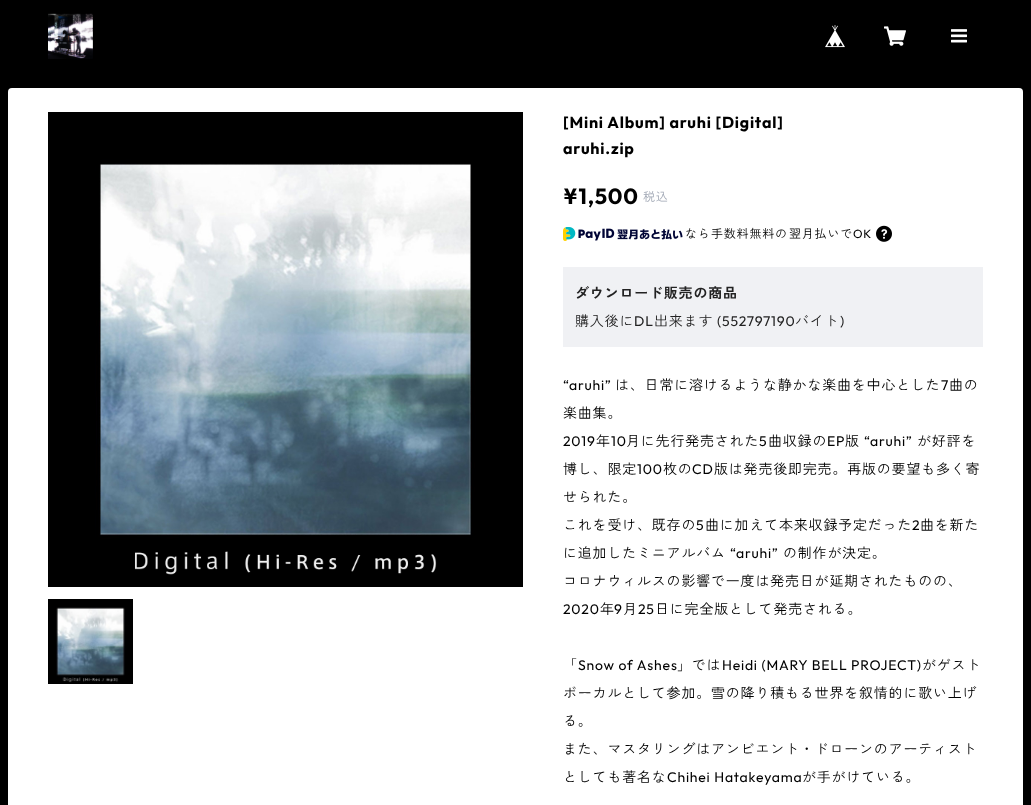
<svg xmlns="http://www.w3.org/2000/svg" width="1031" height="805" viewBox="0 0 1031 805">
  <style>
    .t1 { font: bold 16px Outfit; letter-spacing: 0.8px; fill: #000; }
    .t2 { font: bold 22px Outfit; letter-spacing: 0.8px; fill: #000; }
    .t3 { font: 12px Zen Kaku Gothic New; letter-spacing: 0.8px; fill: #a0a7b4; }
    .t4 { font: 12px Zen Kaku Gothic New; letter-spacing: 0.8px; fill: #000; }
    .t5 { font: 12px Outfit; letter-spacing: 0.8px; fill: #000; }
    .t6 { font: bold 14px Zen Kaku Gothic New; letter-spacing: 0.8px; fill: #222; }
    .t7 { font: 14px Zen Kaku Gothic New; letter-spacing: 0.8px; fill: #222; }
    .t8 { font: 14px Outfit; letter-spacing: 0.8px; fill: #222; }
    .t9 { font: 14px Outfit; letter-spacing: 0.8px; fill: #000; }
    .t10 { font: 14px Zen Kaku Gothic New; letter-spacing: 0.8px; fill: #000; }
  </style>
  <rect width="100%" height="100%" fill="#000"/>
  <image x="48" y="13" width="45" height="46" href="images/1.png"/>
  <image x="825" y="25" width="20" height="23" href="images/2.png"/>
  <image x="884" y="26" width="22" height="20" href="images/3.png"/>
  <image x="951" y="29" width="16" height="14" href="images/4.png"/>
  <rect x="8" y="88" width="1015" height="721" rx="4" fill="#fff"/>
  <image x="48" y="112" width="475" height="475" href="images/5.png"/>
  <image x="48" y="599" width="85" height="85" href="images/6.png"/>
  <text x="563" y="128" class="t1">[Mini Album] aruhi [Digital]</text>
  <text x="563" y="154" class="t1">aruhi.zip</text>
  <text x="563" y="204" class="t2">¥1,500</text>
  <text x="643" y="201" class="t3">税込</text>
  <image x="563" y="227" width="120" height="14" href="images/7.png"/>
  <text x="685" y="238" class="t4">なら</text>
  <text x="711" y="238" class="t4">手数料無料の</text>
  <text x="789" y="238" class="t4">翌月払いで</text>
  <text x="853" y="238" class="t5">OK</text>
  <image x="876" y="225" width="16" height="17" href="images/8.png"/>
  <rect x="563" y="267" width="420" height="80" fill="#f0f1f4"/>
  <text x="575" y="298" class="t6">ダウンロード販売の商品</text>
  <text x="575" y="326" class="t7">購入後に</text>
  <text x="634" y="326" class="t8">DL</text>
  <text x="654" y="326" class="t7">出来ます</text>
  <text x="717" y="326" class="t8">(552797190</text>
  <text x="795" y="326" class="t7">バイト</text>
  <text x="840" y="326" class="t8">)</text>
  <text x="563" y="390" class="t9">“aruhi”</text>
  <text x="615" y="390" class="t10">は、日常に溶けるような静かな楽曲を中心とした</text>
  <text x="941" y="390" class="t9">7</text>
  <text x="949" y="390" class="t10">曲の</text>
  <text x="563" y="418" class="t10">楽曲集。</text>
  <text x="563" y="446" class="t9">2019</text>
  <text x="596" y="446" class="t10">年</text>
  <text x="611" y="446" class="t9">10</text>
  <text x="626" y="446" class="t10">月に先行発売された</text>
  <text x="759" y="446" class="t9">5</text>
  <text x="768" y="446" class="t10">曲収録の</text>
  <text x="827" y="446" class="t9">EP</text>
  <text x="845" y="446" class="t10">版</text>
  <text x="864" y="446" class="t9">“aruhi”</text>
  <text x="917" y="446" class="t10">が好評を</text>
  <text x="563" y="474" class="t10">博し、限定</text>
  <text x="637" y="474" class="t9">100</text>
  <text x="663" y="474" class="t10">枚の</text>
  <text x="692" y="474" class="t9">CD</text>
  <text x="714" y="474" class="t10">版は発売後即完売。再版の要望も多く寄</text>
  <text x="563" y="502" class="t10">せられた。</text>
  <text x="563" y="530" class="t10">これを受け、既存の</text>
  <text x="696" y="530" class="t9">5</text>
  <text x="705" y="530" class="t10">曲に加えて本来収録予定だった</text>
  <text x="912" y="530" class="t9">2</text>
  <text x="920" y="530" class="t10">曲を新た</text>
  <text x="563" y="558" class="t10">に追加したミニアルバム</text>
  <text x="730" y="558" class="t9">“aruhi”</text>
  <text x="783" y="558" class="t10">の制作が決定。</text>
  <text x="563" y="586" class="t10">コロナウィルスの影響で一度は発売日が延期されたものの、</text>
  <text x="563" y="614" class="t9">2020</text>
  <text x="600" y="614" class="t10">年</text>
  <text x="614" y="614" class="t9">9</text>
  <text x="623" y="614" class="t10">月</text>
  <text x="638" y="614" class="t9">25</text>
  <text x="655" y="614" class="t10">日に完全版として発売される。</text>
  <text x="563" y="670" class="t10">「</text>
  <text x="578" y="670" class="t9">Snow of Ashes</text>
  <text x="677" y="670" class="t10">」では</text>
  <text x="722" y="670" class="t9">Heidi (MARY BELL PROJECT)</text>
  <text x="922" y="670" class="t10">がゲスト</text>
  <text x="563" y="698" class="t10">ボーカルとして参加。雪の降り積もる世界を叙情的に歌い上げ</text>
  <text x="563" y="726" class="t10">る。</text>
  <text x="563" y="754" class="t10">また、マスタリングはアンビエント・ドローンのアーティスト</text>
  <text x="563" y="782" class="t10">としても著名な</text>
  <text x="667" y="782" class="t9">Chihei Hatakeyama</text>
  <text x="802" y="782" class="t10">が手がけている。</text>
</svg>
